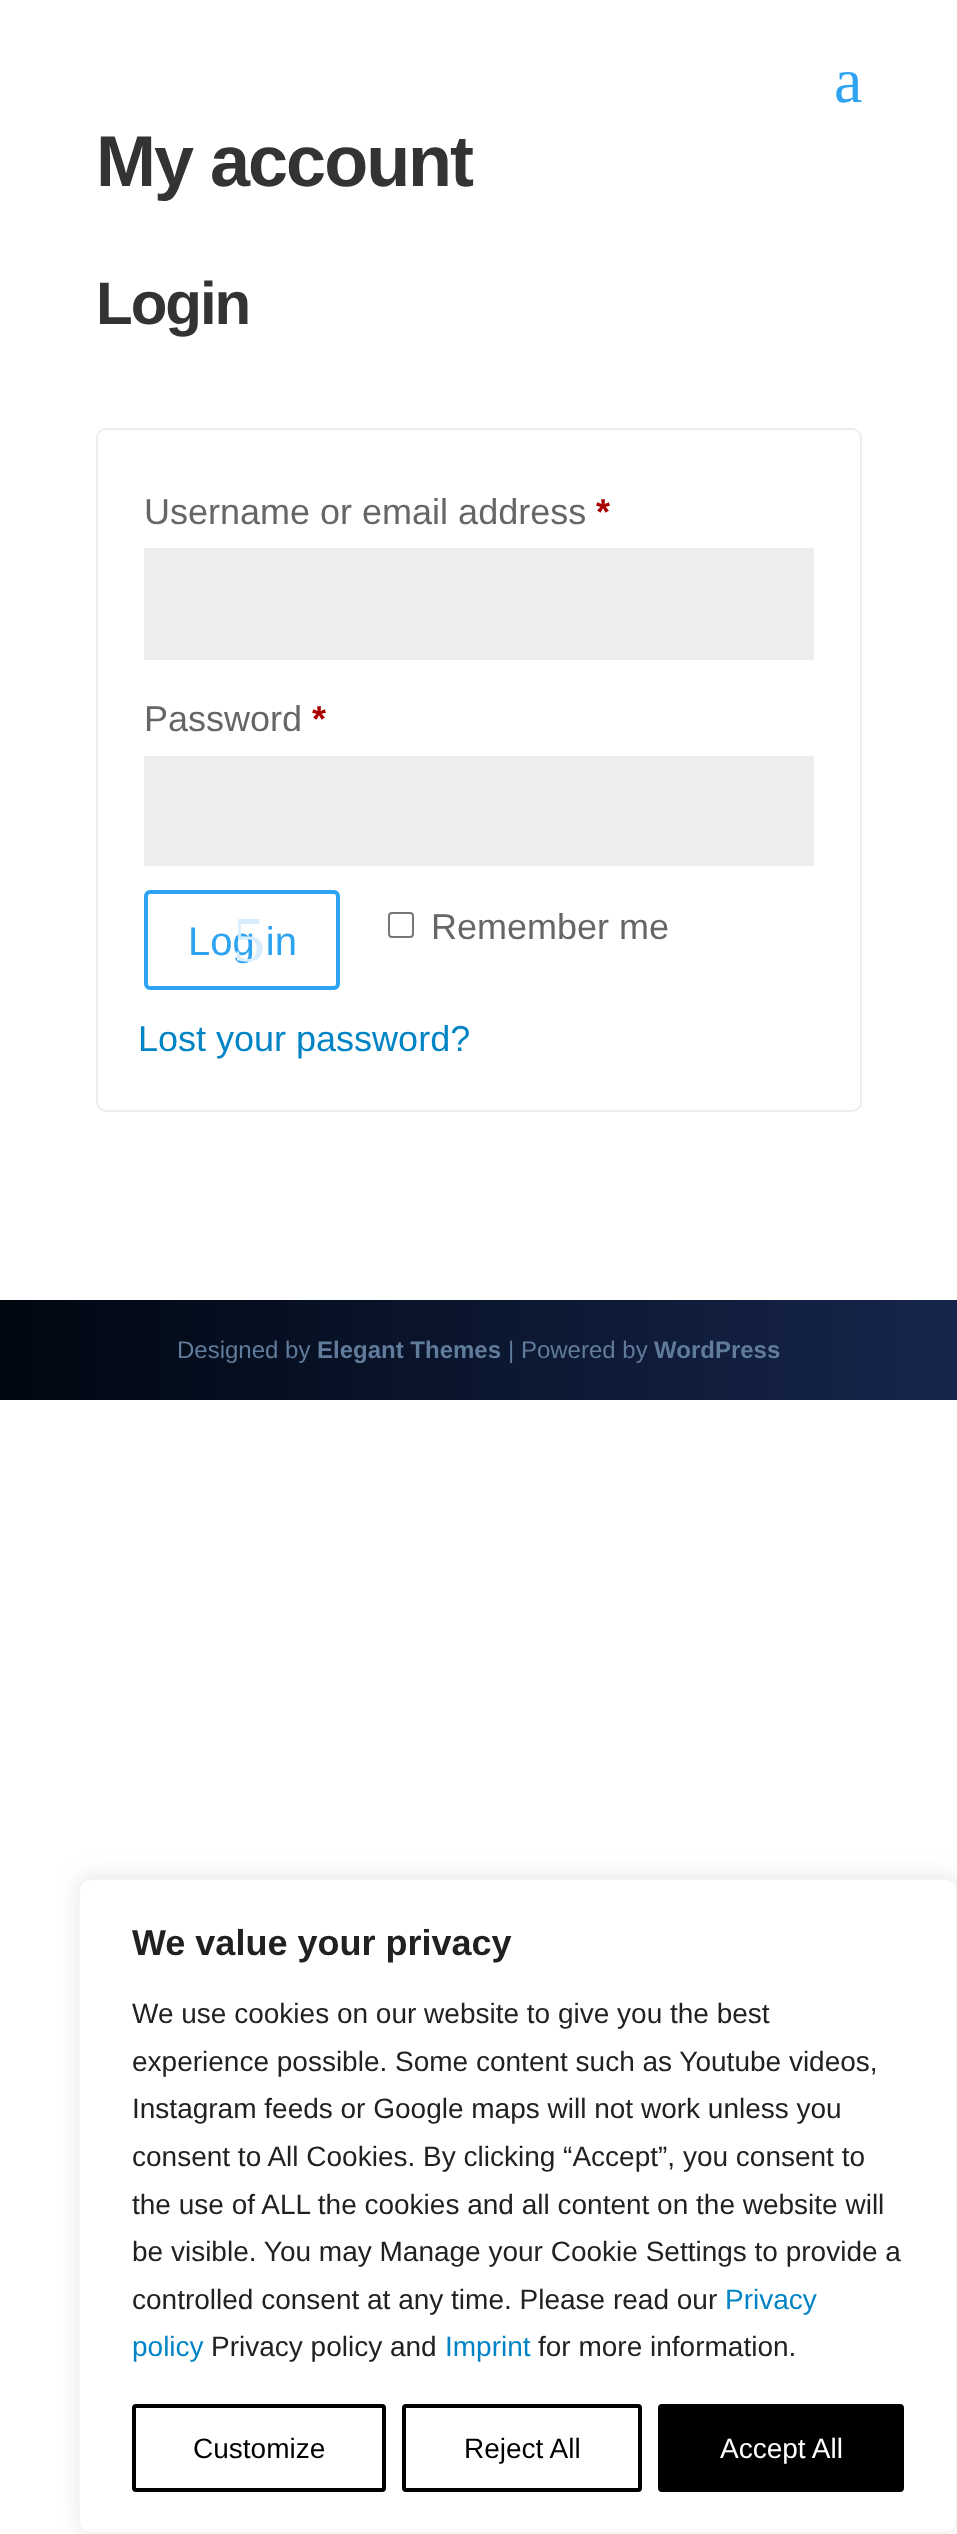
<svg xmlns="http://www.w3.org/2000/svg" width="957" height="2534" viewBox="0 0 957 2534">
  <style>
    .t1 { font: 64px Liberation Serif; fill: #2ea3f2; }
    .t2 { font: bold 72px Liberation Sans; letter-spacing: -2px; fill: #333; }
    .t3 { font: bold 60px Liberation Sans; letter-spacing: -2px; fill: #333; }
    .t4 { font: 36px Liberation Sans; fill: #666; }
    .t5 { font: bold 36px Liberation Sans; fill: #a00; }
    .t6 { font: 40px Liberation Sans; fill: #2ea3f2; }
    .t7 { font: 64px Liberation Serif; fill: #d9eefd; }
    .t8 { font: 36px Liberation Sans; fill: #0084c6; }
    .t9 { font: 24px Liberation Sans; fill: #617b9b; }
    .t10 { font: bold 24px Liberation Sans; fill: #617b9b; }
    .t11 { font: bold 36px Liberation Sans; fill: #212121; }
    .t12 { font: 28px Liberation Sans; fill: #212121; }
    .t13 { font: 28px Liberation Sans; fill: #0084c6; }
    .t14 { font: 28px Liberation Sans; fill: #000; }
    .t15 { font: 28px Liberation Sans; fill: #fff; }
  </style>
  <defs>
    <linearGradient id="g1" gradientUnits="userSpaceOnUse" x1="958" y1="1350" x2="0" y2="1350"><stop offset="0" stop-color="#16254c"/><stop offset="1" stop-color="#000711"/></linearGradient>
  </defs>
  <rect width="100%" height="100%" fill="#fff"/>
  <text x="834" y="102" class="t1">a</text>
  <text x="96" y="186" class="t2">My account</text>
  <text x="96" y="324" class="t3">Login</text>
  <rect x="97" y="429" width="764" height="682" rx="9" fill="none" stroke="#eee" stroke-width="2"/>
  <text x="144" y="524" class="t4">Username or email address</text>
  <text x="596" y="524" class="t5">*</text>
  <rect x="144" y="548" width="670" height="112" fill="#eee"/>
  <text x="144" y="731" class="t4">Password</text>
  <text x="312" y="731" class="t5">*</text>
  <rect x="144" y="756" width="670" height="110" fill="#eee"/>
  <rect x="146" y="892" width="192" height="96" rx="4" fill="none" stroke="#2ea3f2" stroke-width="4"/>
  <text x="188" y="955" class="t6">Log in</text>
  <text x="233" y="961" class="t7">5</text>
  <rect x="389" y="913" width="24" height="24" rx="3" fill="none" stroke="#767676" stroke-width="2"/>
  <text x="431" y="939" class="t4">Remember me</text>
  <text x="138" y="1051" class="t8">Lost your password?</text>
  <rect x="0" y="1300" width="957" height="100" fill="url(#g1)"/>
  <text x="177" y="1358" class="t9">Designed by</text>
  <text x="317" y="1358" class="t10">Elegant Themes</text>
  <text x="508" y="1358" class="t9">| Powered by</text>
  <text x="654" y="1358" class="t10">WordPress</text>
  <rect x="78" y="1876" width="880" height="656" rx="12" fill="#acabab4d" filter="blur(10px)"/>
  <rect x="79" y="1879" width="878" height="654" rx="11" fill="#fff" stroke="#f4f4f4" stroke-width="2"/>
  <text x="132" y="1955" class="t11">We value your privacy</text>
  <text x="132" y="2023" class="t12">We use cookies on our website to give you the best</text>
  <text x="132" y="2071" class="t12">experience possible. Some content such as Youtube videos,</text>
  <text x="132" y="2118" class="t12">Instagram feeds or Google maps will not work unless you</text>
  <text x="132" y="2166" class="t12">consent to All Cookies. By clicking “Accept”, you consent to</text>
  <text x="132" y="2214" class="t12">the use of ALL the cookies and all content on the website will</text>
  <text x="132" y="2261" class="t12">be visible. You may Manage your Cookie Settings to provide a</text>
  <text x="132" y="2309" class="t12">controlled consent at any time. Please read our</text>
  <text x="725" y="2309" class="t13">Privacy</text>
  <text x="132" y="2356" class="t13">policy</text>
  <text x="211" y="2356" class="t12">Privacy policy and</text>
  <text x="445" y="2356" class="t13">Imprint</text>
  <text x="538" y="2356" class="t12">for more information.</text>
  <rect x="134" y="2406" width="250" height="84" rx="2" fill="none" stroke="#000" stroke-width="4"/>
  <text x="193" y="2458" class="t14">Customize</text>
  <rect x="404" y="2406" width="236" height="84" rx="2" fill="none" stroke="#000" stroke-width="4"/>
  <text x="464" y="2458" class="t14">Reject All</text>
  <rect x="660" y="2406" width="242" height="84" rx="2" fill="#000" stroke="#000" stroke-width="4"/>
  <text x="720" y="2458" class="t15">Accept All</text>
</svg>
